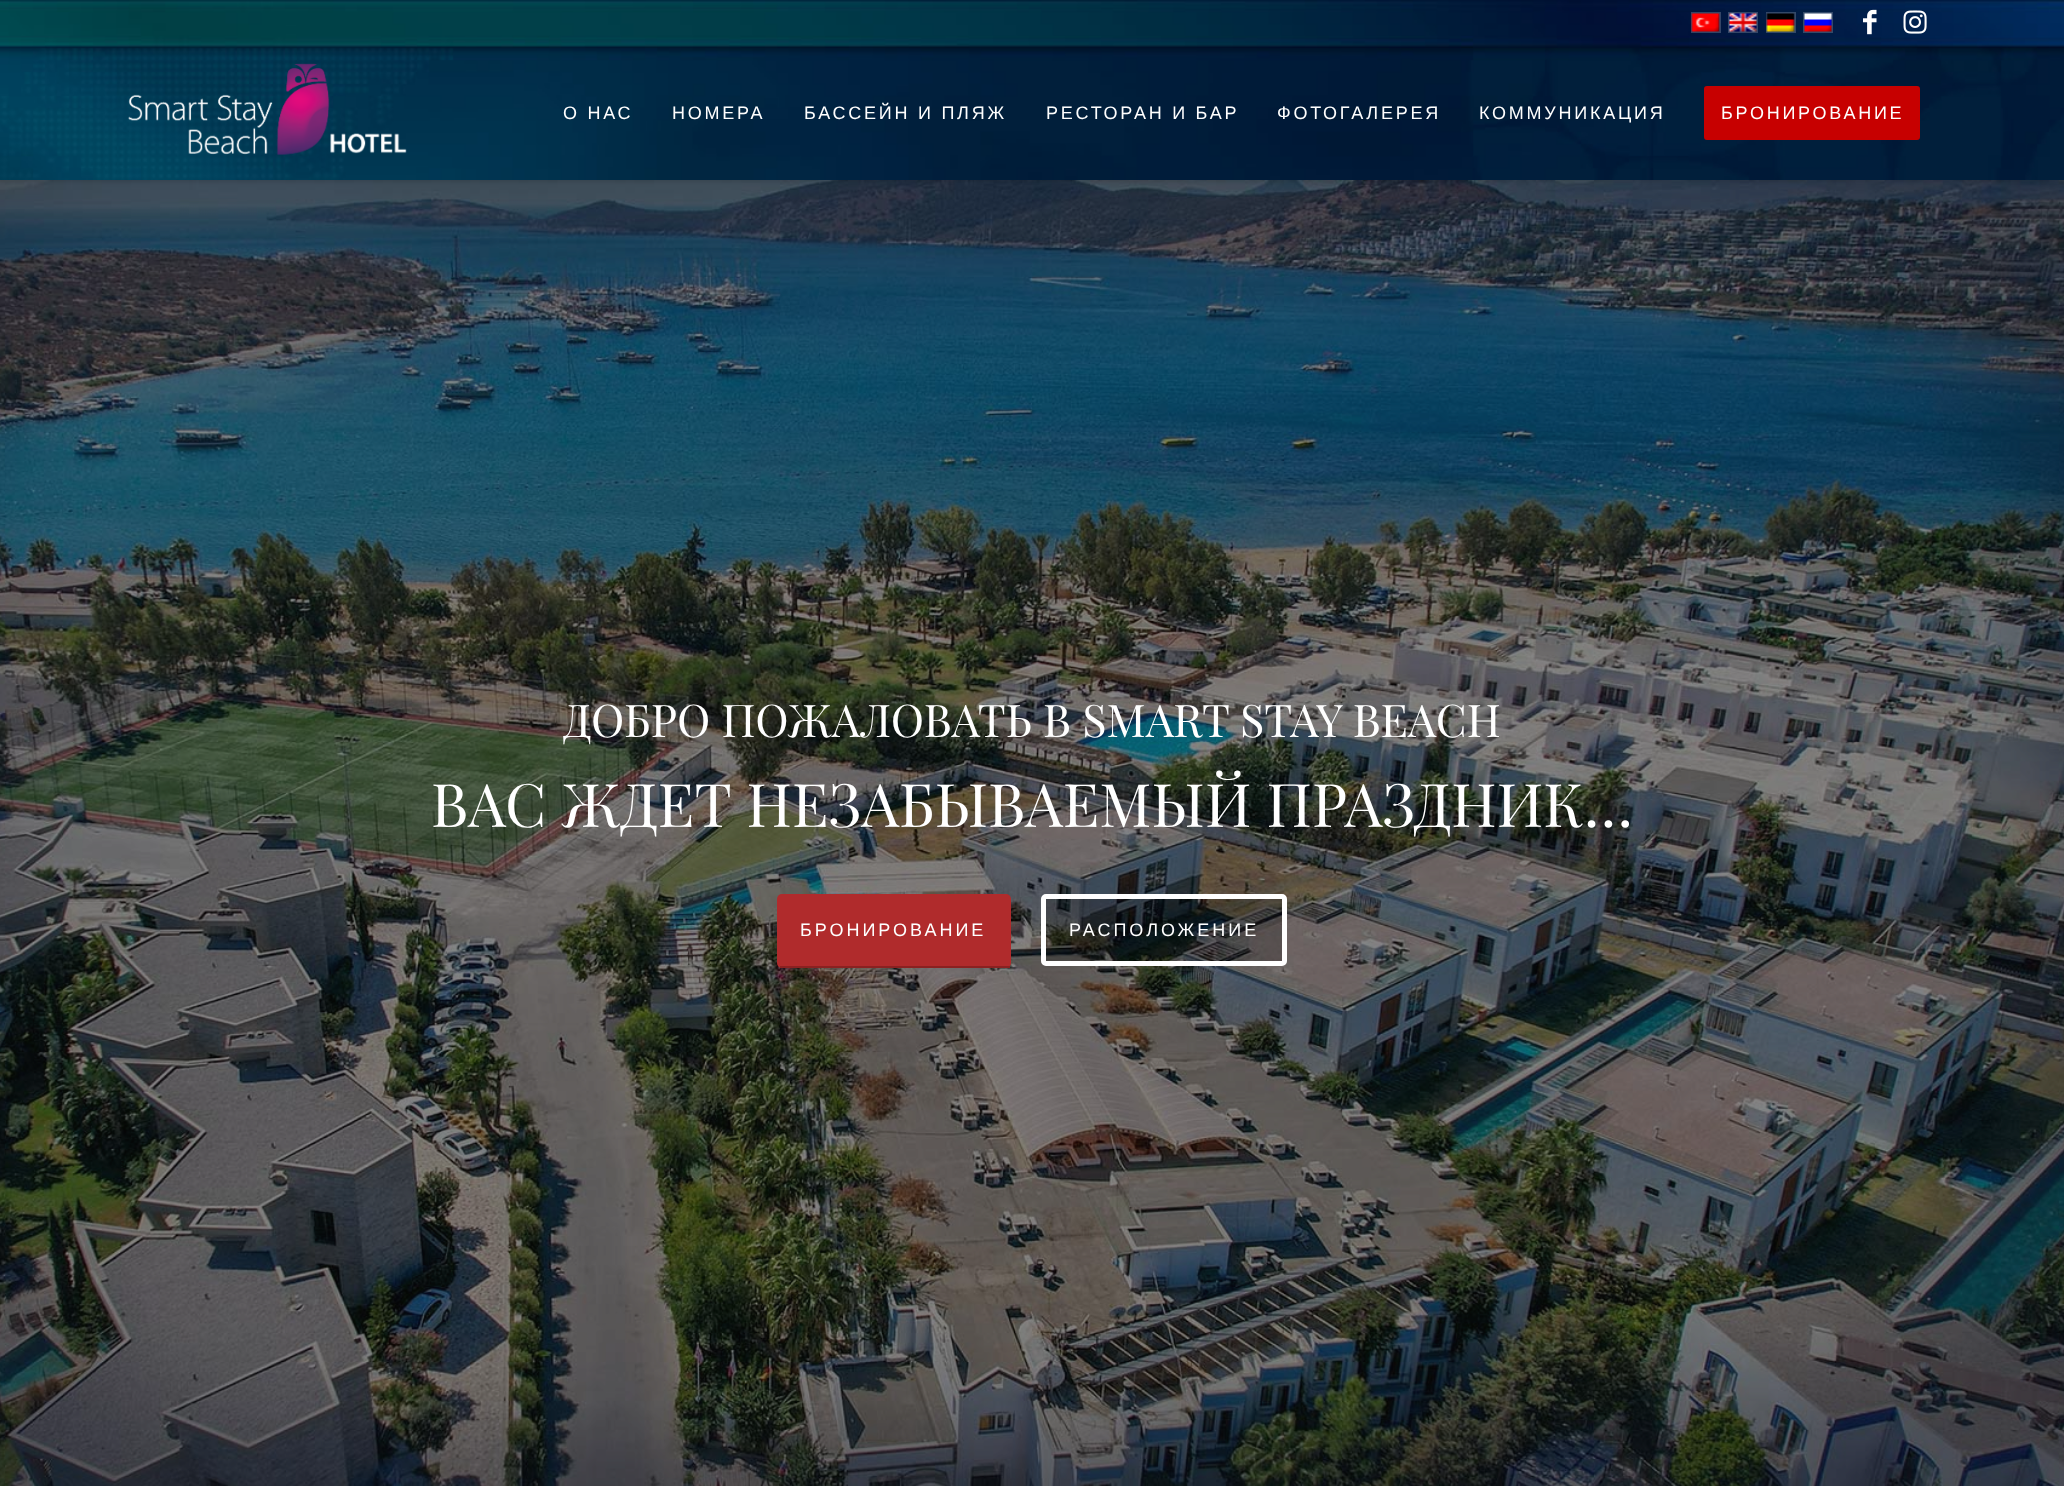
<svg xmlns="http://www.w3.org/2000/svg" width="2064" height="1486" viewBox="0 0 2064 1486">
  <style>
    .t1 { font: 18px Liberation Sans; letter-spacing: 2.75px; fill: #fff; }
    .t2 { font: 45px Playfair Display; fill: #fff; }
    .t3 { font: 60px Playfair Display; fill: #fff; }
    .t4 { font: 18px Liberation Sans; letter-spacing: 3px; fill: #fff; }
  </style>
  <rect width="100%" height="100%" fill="#fff"/>
  <image x="0" y="180" width="2064" height="1306" href="images/9.png"/>
  <rect x="-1" y="-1" width="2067" height="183" fill="#0000001a" filter="blur(1.5px)"/>
  <image x="0" y="0" width="2064" height="180" href="images/1.png"/>
  <rect x="1692" y="13" width="28" height="19" fill="none" stroke="#ffffff33" stroke-width="2"/>
  <image x="1691" y="13" width="29" height="19" href="images/2.png"/>
  <rect x="1729" y="13" width="28" height="19" fill="none" stroke="#334667" stroke-width="2"/>
  <image x="1729" y="13" width="28" height="19" href="images/3.png"/>
  <rect x="1767" y="13" width="28" height="19" fill="none" stroke="#ffffff33" stroke-width="2"/>
  <image x="1766" y="13" width="29" height="19" href="images/4.png"/>
  <rect x="1804" y="13" width="28" height="19" fill="none" stroke="#ffffff33" stroke-width="2"/>
  <image x="1804" y="13" width="28" height="19" href="images/5.png"/>
  <image x="1863" y="9" width="14" height="26" href="images/6.png"/>
  <image x="1903" y="10" width="24" height="24" href="images/7.png"/>
  <image x="128" y="63" width="279" height="92" href="images/8.png"/>
  <text x="563" y="119" class="t1">О НАС</text>
  <text x="672" y="119" class="t1">НОМЕРА</text>
  <text x="804" y="119" class="t1">БАССЕЙН И ПЛЯЖ</text>
  <text x="1046" y="119" class="t1">РЕСТОРАН И БАР</text>
  <text x="1277" y="119" class="t1">ФОТОГАЛЕРЕЯ</text>
  <text x="1479" y="119" class="t1">КОММУНИКАЦИЯ</text>
  <rect x="1705.5" y="87.5" width="213" height="51" rx="1.5" fill="#c70000" stroke="#c70000" stroke-width="3"/>
  <text x="1721" y="119" class="t1">БРОНИРОВАНИЕ</text>
  <text x="563" y="737" class="t2">ДОБРО ПОЖАЛОВАТЬ В SMART STAY BEACH</text>
  <text x="431" y="827" class="t3">ВАС ЖДЕТ НЕЗАБЫВАЕМЫЙ ПРАЗДНИК…</text>
  <rect x="777" y="894" width="234" height="74" rx="5" fill="#b02b2c"/>
  <rect x="780" y="966" width="230" height="2" fill="#8b2121"/>
  <text x="800" y="936" class="t4">БРОНИРОВАНИЕ</text>
  <rect x="1043.5" y="896.5" width="241" height="67" rx="2.5" fill="#00000033" stroke="#fff" stroke-width="5"/>
  <text x="1069" y="936" class="t4">РАСПОЛОЖЕНИЕ</text>
</svg>
